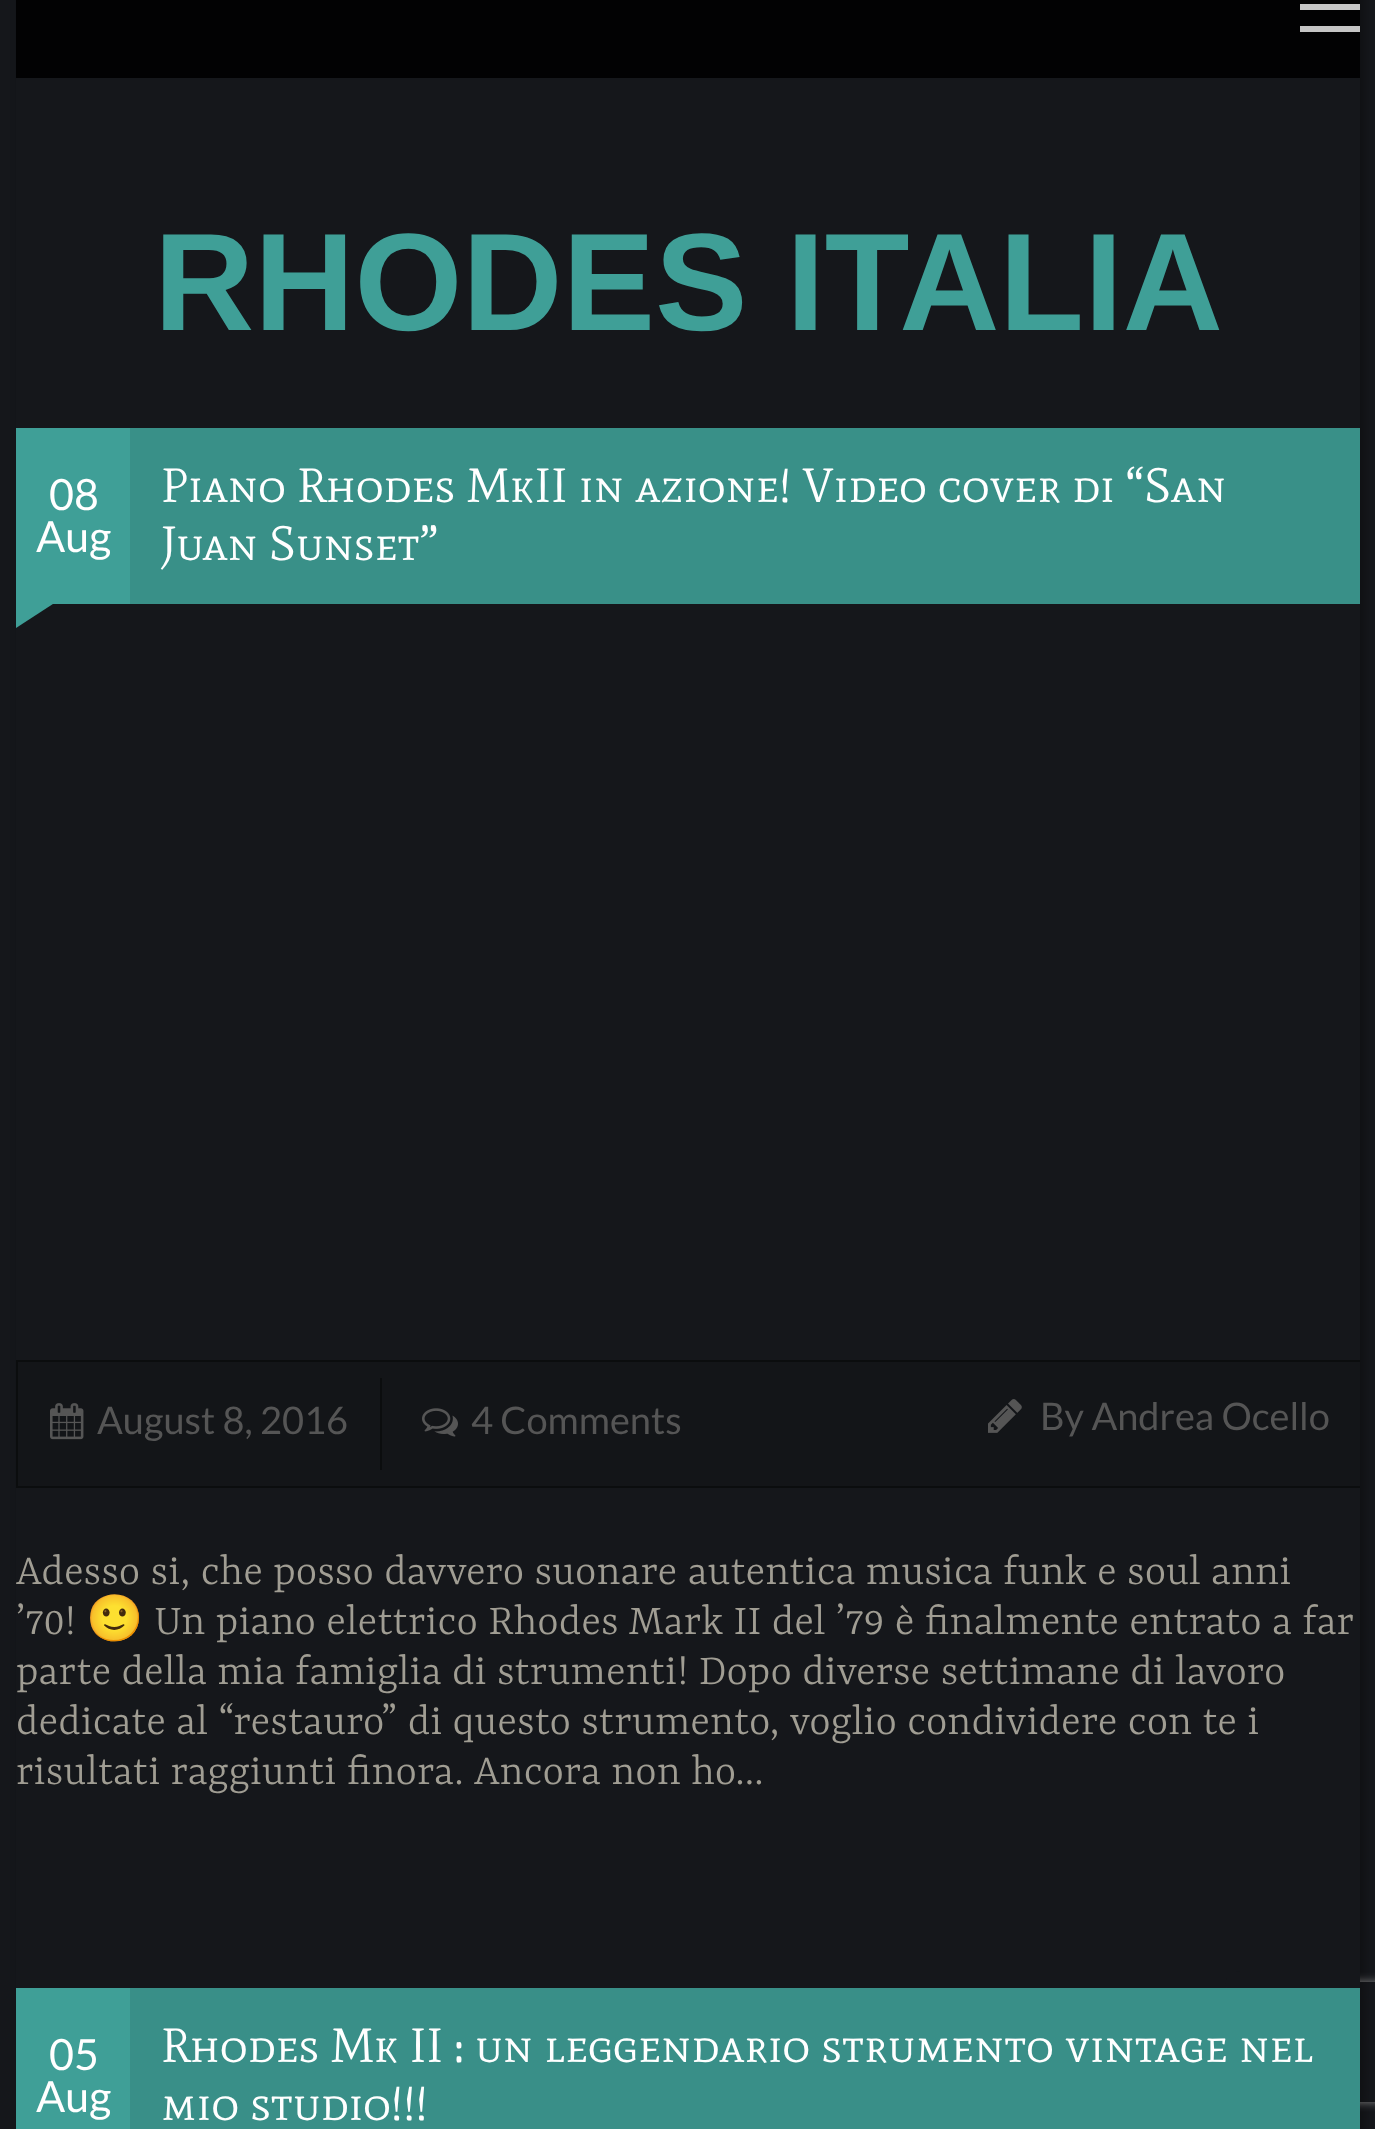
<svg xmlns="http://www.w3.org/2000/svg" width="1375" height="2129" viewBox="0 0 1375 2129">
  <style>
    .t1 { font: bold 138.75px Liberation Sans; fill: #3f9f97; }
    .t2 { font: 43px Lato; fill: #fff; }
    .t3 { font: 48px Mate SC; fill: #fff; }
    .t4 { font: 38px Lato; fill: #555; }
    .t5 { font: 300 46px Rasa; fill: #a09d93; }
    .t6 { font: 46px Noto Color Emoji; fill: #a09d93; }
  </style>
  <defs>
    <clipPath id="clip1"><path d="M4 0H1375V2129H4ZM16-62H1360V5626H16Z" clip-rule="evenodd"/></clipPath>
    <clipPath id="clip2"><rect x="16" y="0" width="1344" height="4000"/></clipPath>
    <clipPath id="clip3"><path d="M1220 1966H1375V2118H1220ZM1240 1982H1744C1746 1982 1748 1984 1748 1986V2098C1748 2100 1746 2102 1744 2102H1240C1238 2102 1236 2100 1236 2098V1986C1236 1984 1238 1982 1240 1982Z" clip-rule="evenodd"/></clipPath>
  </defs>
  <rect width="100%" height="100%" fill="#15171b"/>
  <g clip-path="url(#clip1)">
    <rect x="20" y="-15" width="1344" height="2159" fill="#0000004d" filter="blur(5px)"/>
  </g>
  <rect x="16" y="0" width="1344" height="78" fill="#020203"/>
  <rect x="1300" y="4" width="60" height="6" fill="#c4c4c4"/>
  <rect x="1300" y="26" width="60" height="6" fill="#c4c4c4"/>
  <text x="154" y="330" class="t1">RHODES ITALIA</text>
  <rect x="16" y="428" width="114" height="176" fill="#3f9f97"/>
  <text x="49" y="510" class="t2">08</text>
  <text x="36" y="552" class="t2">Aug</text>
  <rect x="130" y="428" width="1230" height="176" fill="#399088"/>
  <text x="161" y="502" class="t3">Piano Rhodes MkII in azione! Video cover di “San</text>
  <text x="161" y="560" class="t3">Juan Sunset”</text>
  <path d="M16 602H56L16 628Z" fill="#3f9f97"/>
  <rect x="18" y="1362" width="1342" height="124" fill="#131518"/>
  <g clip-path="url(#clip2)">
    <rect x="17" y="1361" width="1346" height="126" fill="none" stroke="#0b0d0e" stroke-width="2"/>
  </g>
  <rect x="380" y="1378" width="2" height="92" fill="#0b0d0e"/>
  <image x="50" y="1403" width="34" height="37" href="images/1.png"/>
  <text x="97" y="1434" class="t4">August 8, 2016</text>
  <image x="422" y="1408" width="36" height="29" href="images/2.png"/>
  <text x="471" y="1434" class="t4">4 Comments</text>
  <image x="988" y="1399" width="34" height="34" href="images/3.png"/>
  <text x="1040" y="1430" class="t4">By Andrea Ocello</text>
  <text x="16" y="1584" class="t5">Adesso si, che posso davvero suonare autentica musica funk e soul anni</text>
  <text x="16" y="1634" class="t5">’70!</text>
  <text x="86" y="1634" class="t6">🙂</text>
  <text x="154" y="1634" class="t5">Un piano elettrico Rhodes Mark II del ’79 è finalmente entrato a far</text>
  <text x="16" y="1684" class="t5">parte della mia famiglia di strumenti! Dopo diverse settimane di lavoro</text>
  <text x="16" y="1734" class="t5">dedicate al “restauro” di questo strumento, voglio condividere con te i</text>
  <text x="16" y="1784" class="t5">risultati raggiunti finora. Ancora non ho…</text>
  <rect x="16" y="1988" width="114" height="141" fill="#3f9f97"/>
  <text x="49" y="2070" class="t2">05</text>
  <text x="36" y="2112" class="t2">Aug</text>
  <g clip-path="url(#clip3)">
    <rect x="1236" y="1982" width="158" height="120" rx="4" fill="#808080" filter="blur(5px)"/>
  </g>
  <rect x="130" y="1988" width="1230" height="141" fill="#398f88"/>
  <text x="161" y="2062" class="t3">Rhodes Mk II : un leggendario strumento vintage nel</text>
  <text x="161" y="2120" class="t3">mio studio!!!</text>
  <rect x="1227" y="1972" width="133" height="16" fill="#15171b"/>
</svg>
